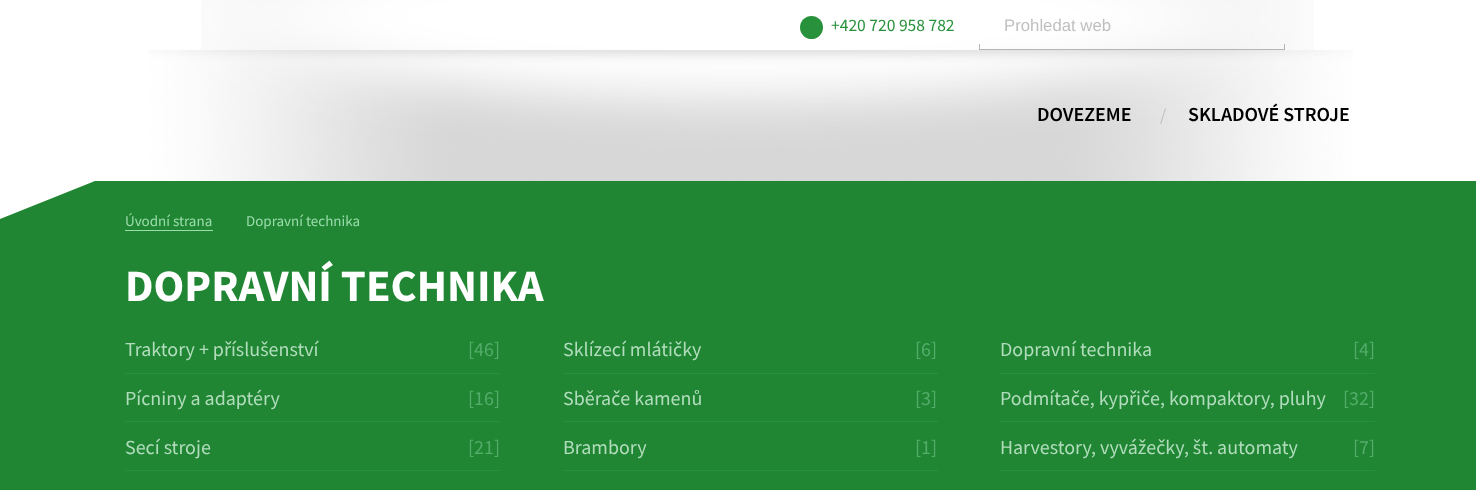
<svg xmlns="http://www.w3.org/2000/svg" width="1476" height="490" viewBox="0 0 1476 490">
  <style>
    .t1 { font: 17.5px Source Sans Pro; fill: #28913b; }
    .t2 { font: 16.75px Liberation Sans; fill: #bfbfbf; }
    .t3 { font: 600 20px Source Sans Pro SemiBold; fill: #000; }
    .t4 { font: 17.5px Source Sans Pro; fill: #bfbfbf; }
    .t5 { font: 15px Source Sans Pro; fill: #9cddad; }
    .t6 { font: bold 45px Source Sans Pro; fill: #fff; }
    .t7 { font: 20px Source Sans Pro; fill: #b2ddbd; }
    .t8 { font: 20px Source Sans Pro; fill: #53ac6a; }
  </style>
  <rect width="100%" height="100%" fill="#fff"/>
  <image x="201" y="0" width="1113" height="50" href="images/1.png"/>
  <circle cx="811.5" cy="27.5" r="11.5" fill="#28913b"/>
  <text x="831" y="31" class="t1">+420 720 958 782</text>
  <text x="1004" y="31" class="t2">Prohledat web</text>
  <rect x="1284" y="44" width="1" height="6" fill="#b5b5b5"/>
  <rect x="979" y="49" width="306" height="1" fill="#b5b5b5"/>
  <rect x="979" y="44" width="1" height="6" fill="#b5b5b5"/>
  <image x="148" y="50" width="1205" height="131" href="images/2.png"/>
  <text x="1037" y="121" class="t3">DOVEZEME</text>
  <text x="1160" y="121" class="t4">/</text>
  <text x="1188" y="121" class="t3">SKLADOVÉ STROJE</text>
  <rect x="0" y="181" width="1476" height="309" fill="#208633"/>
  <path d="M0 169H125L0 219Z" fill="#fff"/>
  <text x="125" y="226" class="t5">Úvodní strana</text>
  <rect x="125" y="230" width="88" height="1" fill="#9cddad"/>
  <text x="246" y="226" class="t5">Dopravní technika</text>
  <text x="125" y="301" class="t6">DOPRAVNÍ TECHNIKA</text>
  <rect x="125" y="373" width="375" height="1" fill="#28913b"/>
  <text x="125" y="356" class="t7">Traktory + příslušenství</text>
  <text x="468" y="356" class="t8">[46]</text>
  <rect x="563" y="373" width="375" height="1" fill="#28913b"/>
  <text x="563" y="356" class="t7">Sklízecí mlátičky</text>
  <text x="915" y="356" class="t8">[6]</text>
  <rect x="1000" y="373" width="375" height="1" fill="#28913b"/>
  <text x="1000" y="356" class="t7">Dopravní technika</text>
  <text x="1353" y="356" class="t8">[4]</text>
  <rect x="125" y="421" width="375" height="1" fill="#28913b"/>
  <text x="125" y="405" class="t7">Pícniny a adaptéry</text>
  <text x="468" y="405" class="t8">[16]</text>
  <rect x="563" y="421" width="375" height="1" fill="#28913b"/>
  <text x="563" y="405" class="t7">Sběrače kamenů</text>
  <text x="915" y="405" class="t8">[3]</text>
  <rect x="1000" y="421" width="375" height="1" fill="#28913b"/>
  <text x="1000" y="405" class="t7">Podmítače, kypřiče, kompaktory, pluhy</text>
  <text x="1343" y="405" class="t8">[32]</text>
  <rect x="125" y="470" width="375" height="1" fill="#28913b"/>
  <text x="125" y="454" class="t7">Secí stroje</text>
  <text x="468" y="454" class="t8">[21]</text>
  <rect x="563" y="470" width="375" height="1" fill="#28913b"/>
  <text x="563" y="454" class="t7">Brambory</text>
  <text x="915" y="454" class="t8">[1]</text>
  <rect x="1000" y="470" width="375" height="1" fill="#28913b"/>
  <text x="1000" y="454" class="t7">Harvestory, vyvážečky, št. automaty</text>
  <text x="1353" y="454" class="t8">[7]</text>
</svg>
